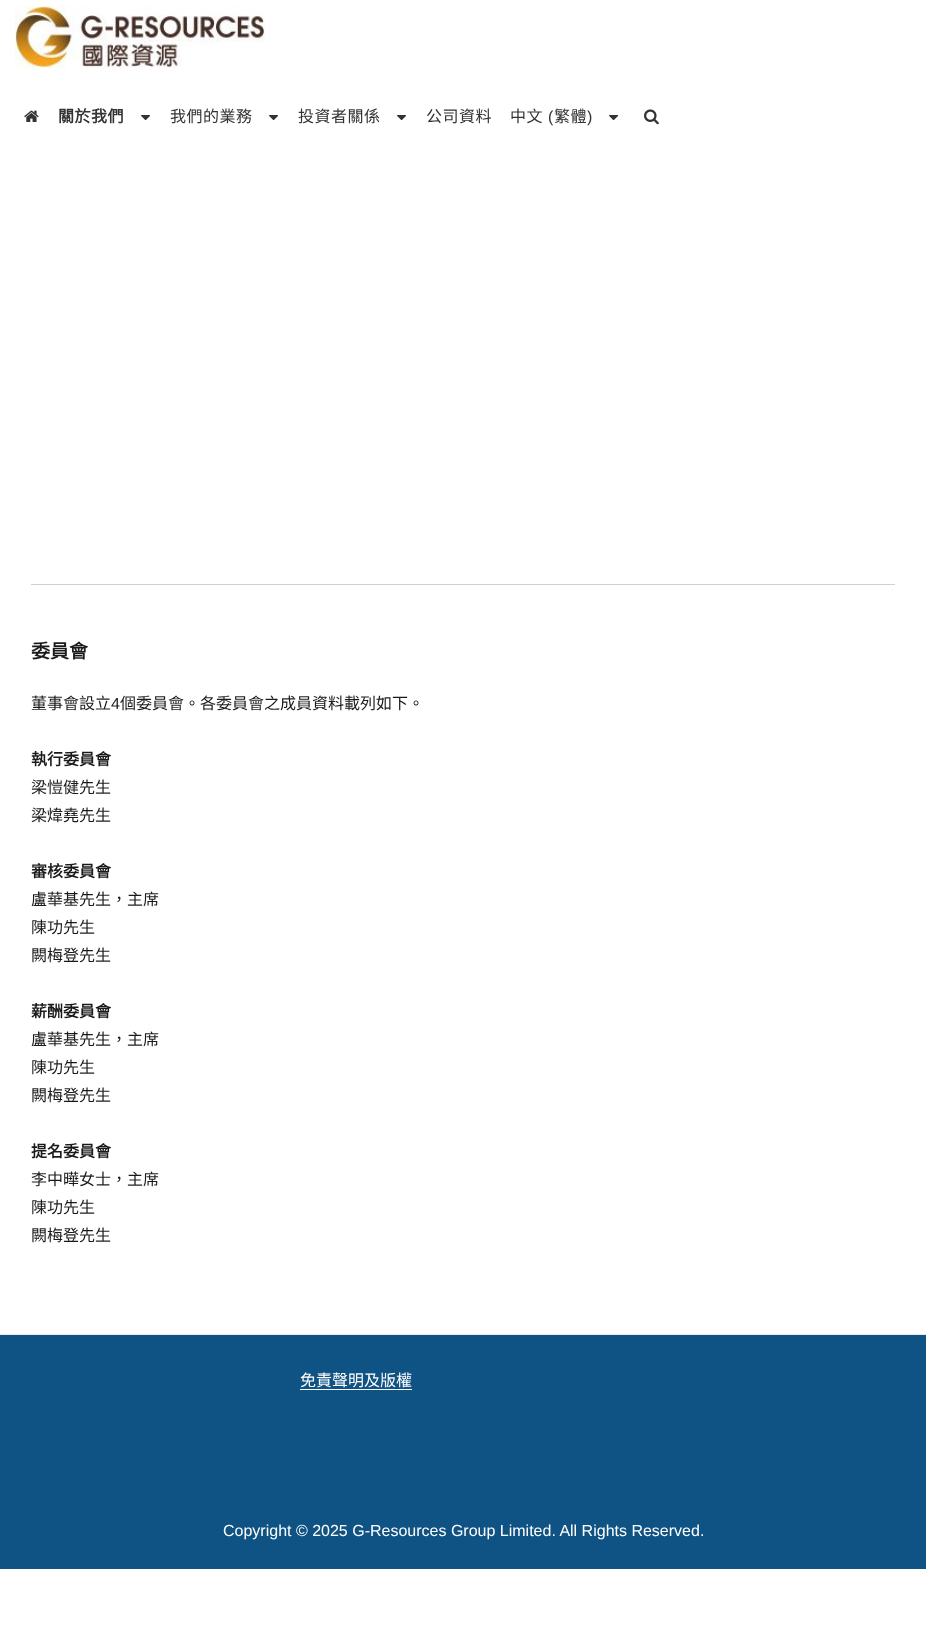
<svg xmlns="http://www.w3.org/2000/svg" width="926" height="1639" viewBox="0 0 926 1639">
  <style>
    .t1 { font: bold 16px Noto Sans CJK HK; letter-spacing: 0.5px; fill: #333; }
    .t2 { font: 16px Noto Sans CJK HK; letter-spacing: 0.5px; fill: #333; }
    .t3 { font: 16px Arimo; letter-spacing: 0.5px; fill: #333; }
    .t4 { font: bold 19px Noto Sans CJK HK; fill: #1a1a1a; }
    .t5 { font: 16px Noto Sans CJK HK; fill: #1a1a1a; }
    .t6 { font: 16px Arimo; fill: #1a1a1a; }
    .t7 { font: bold 16px Noto Sans CJK HK; fill: #1a1a1a; }
    .t8 { font: 16px Noto Sans CJK HK; fill: #fff; }
    .t9 { font: 16px Arimo; fill: #fff; }
  </style>
  <rect width="100%" height="100%" fill="#fff"/>
  <image x="15" y="6" width="250" height="62" href="images/1.png"/>
  <image x="24" y="110" width="15" height="12" href="images/2.png"/>
  <text x="58" y="122" class="t1">關於我們</text>
  <image x="141" y="115" width="10" height="6" href="images/3.png"/>
  <text x="170" y="122" class="t2">我們的業務</text>
  <image x="269" y="115" width="10" height="6" href="images/3.png"/>
  <text x="298" y="122" class="t2">投資者關係</text>
  <image x="397" y="115" width="10" height="6" href="images/3.png"/>
  <text x="426" y="122" class="t2">公司資料</text>
  <text x="510" y="122" class="t2">中文</text>
  <text x="548" y="122" class="t3">(</text>
  <text x="554" y="122" class="t2">繁體</text>
  <text x="587" y="122" class="t3">)</text>
  <image x="609" y="115" width="10" height="6" href="images/3.png"/>
  <image x="644" y="109" width="15" height="16" href="images/4.png"/>
  <rect x="31" y="584" width="864" height="1" fill="#d1d1d1"/>
  <text x="31" y="658" class="t4">委員會</text>
  <text x="31" y="709" class="t5">董事會設立</text>
  <text x="111" y="709" class="t6">4</text>
  <text x="120" y="709" class="t5">個委員會。各委員會之成員資料載列如下。</text>
  <text x="31" y="765" class="t7">執行委員會</text>
  <text x="31" y="793" class="t5">梁愷健先生</text>
  <text x="31" y="821" class="t5">梁煒堯先生</text>
  <text x="31" y="877" class="t7">審核委員會</text>
  <text x="31" y="905" class="t5">盧華基先生，主席</text>
  <text x="31" y="933" class="t5">陳功先生</text>
  <text x="31" y="961" class="t5">闕梅登先生</text>
  <text x="31" y="1017" class="t7">薪酬委員會</text>
  <text x="31" y="1045" class="t5">盧華基先生，主席</text>
  <text x="31" y="1073" class="t5">陳功先生</text>
  <text x="31" y="1101" class="t5">闕梅登先生</text>
  <text x="31" y="1157" class="t7">提名委員會</text>
  <text x="31" y="1185" class="t5">李中曄女士，主席</text>
  <text x="31" y="1213" class="t5">陳功先生</text>
  <text x="31" y="1241" class="t5">闕梅登先生</text>
  <rect x="0" y="1335" width="926" height="234" fill="#0f5284"/>
  <rect x="0" y="1334" width="926" height="1" fill="#eaeaea"/>
  <text x="300" y="1386" class="t8">免責聲明及版權</text>
  <rect x="300" y="1389" width="112" height="1" fill="#fff"/>
  <text x="223" y="1536" class="t9">Copyright © 2025 G-Resources Group Limited. All Rights Reserved.</text>
</svg>
